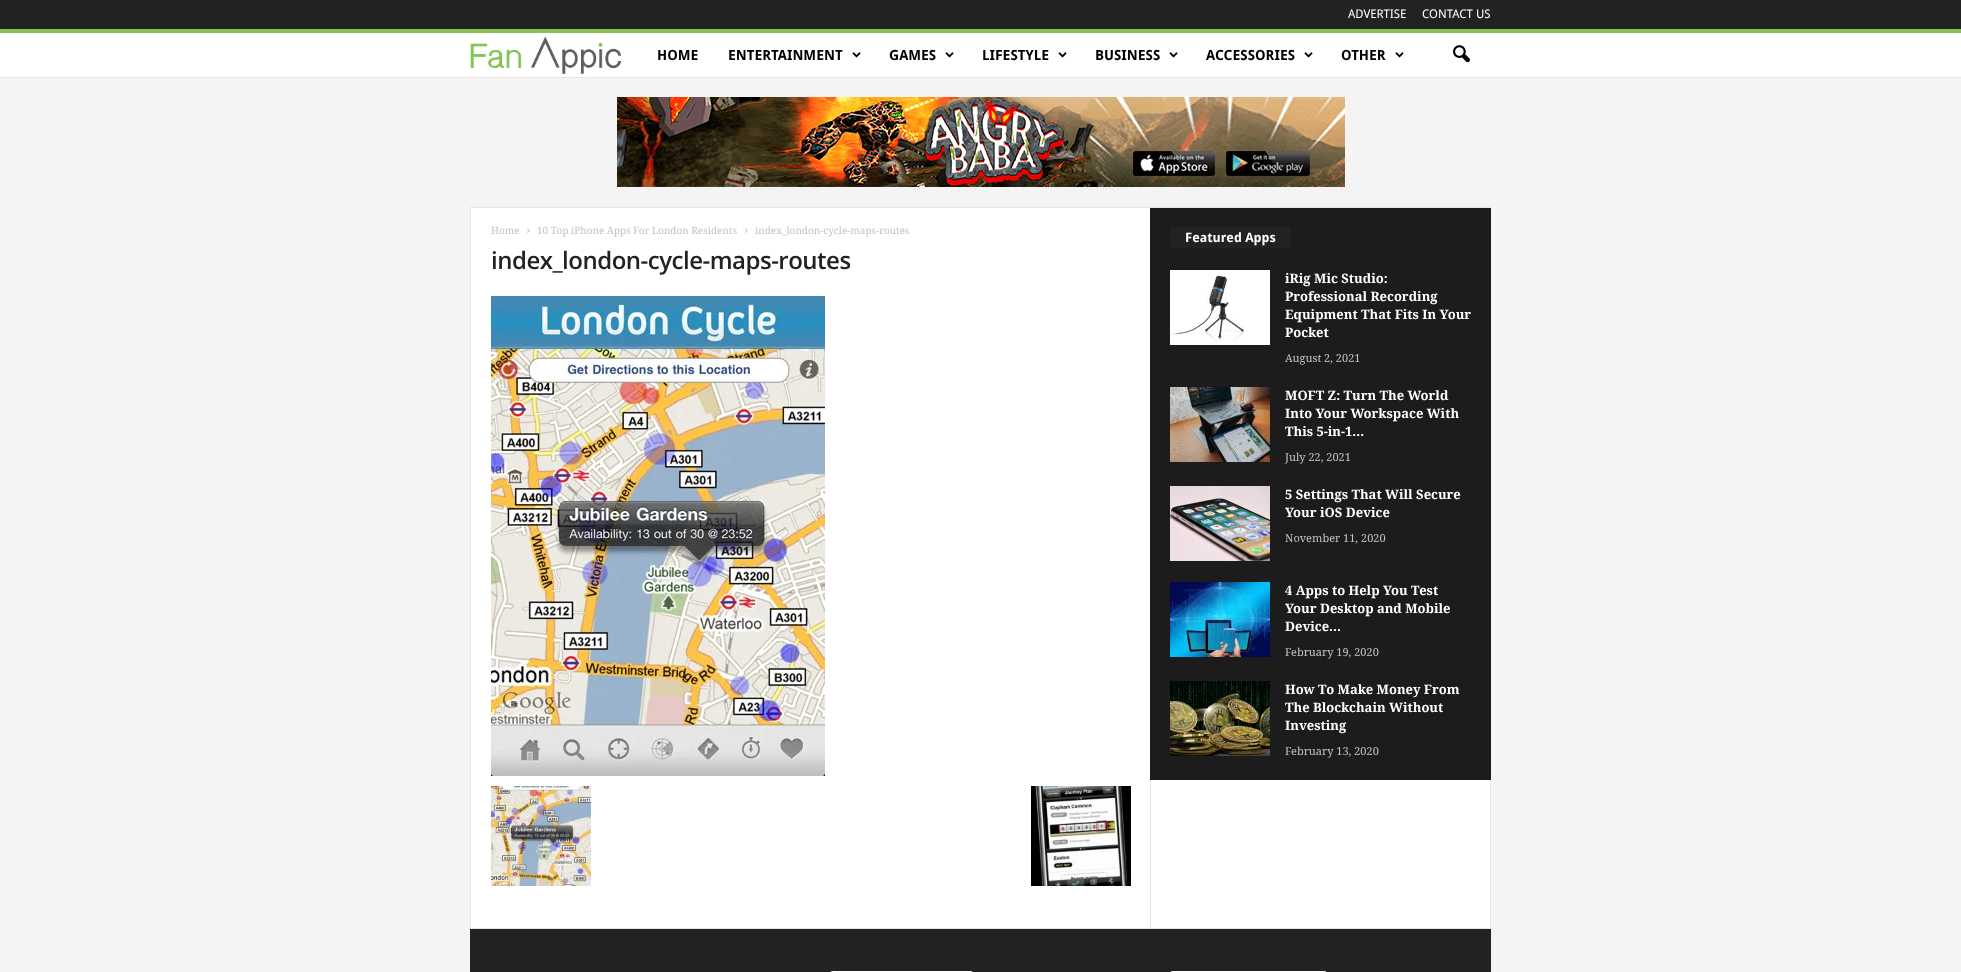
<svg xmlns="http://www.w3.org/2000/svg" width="1961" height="972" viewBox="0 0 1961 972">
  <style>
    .t1 { font: 12px Droid Sans; fill: #fff; }
    .t2 { font: bold 14px Droid Sans; fill: #000; }
    .t3 { font: 10px Droid Serif; fill: #c3c3c3; }
    .t4 { font: 600 24px Open Sans; letter-spacing: -0.5px; fill: #222; }
    .t5 { font: bold 13px Droid Sans; fill: #fff; }
    .t6 { font: bold 13px Droid Serif; fill: #fff; }
    .t7 { font: 11px Droid Serif; fill: #c3c3c3; }
  </style>
  <rect width="100%" height="100%" fill="#f4f4f4"/>
  <rect x="0" y="0" width="1961" height="29" fill="#222"/>
  <text x="1348" y="18" class="t1">ADVERTISE</text>
  <text x="1422" y="18" class="t1">CONTACT US</text>
  <rect x="0" y="33" width="1961" height="44" fill="#fff"/>
  <rect x="0" y="77" width="1961" height="1" fill="#e6e6e6"/>
  <rect x="0" y="29" width="1961" height="4" fill="#85c450"/>
  <image x="470" y="36" width="151" height="38" href="images/1.png"/>
  <text x="657" y="60" class="t2">HOME</text>
  <text x="728" y="60" class="t2">ENTERTAINMENT</text>
  <image x="852" y="52" width="9" height="6" href="images/2.png"/>
  <text x="889" y="60" class="t2">GAMES</text>
  <image x="945" y="52" width="9" height="6" href="images/2.png"/>
  <text x="982" y="60" class="t2">LIFESTYLE</text>
  <image x="1058" y="52" width="9" height="6" href="images/2.png"/>
  <text x="1095" y="60" class="t2">BUSINESS</text>
  <image x="1169" y="52" width="9" height="6" href="images/2.png"/>
  <text x="1206" y="60" class="t2">ACCESSORIES</text>
  <image x="1304" y="52" width="9" height="6" href="images/2.png"/>
  <text x="1341" y="60" class="t2">OTHER</text>
  <image x="1395" y="52" width="9" height="6" href="images/2.png"/>
  <image x="1453" y="45" width="17" height="18" href="images/3.png"/>
  <rect x="470" y="207" width="1021" height="1" fill="#e6e6e6"/>
  <image x="617" y="97" width="728" height="90" href="images/4.png"/>
  <rect x="471" y="208" width="1019" height="720" fill="#fff"/>
  <rect x="470" y="928" width="1021" height="1" fill="#e6e6e6"/>
  <rect x="470" y="208" width="1" height="720" fill="#e6e6e6"/>
  <text x="491" y="234" class="t3">Home</text>
  <image x="527" y="228" width="3" height="5" href="images/5.png"/>
  <text x="537" y="234" class="t3">10 Top iPhone Apps For London Residents</text>
  <image x="745" y="228" width="3" height="5" href="images/5.png"/>
  <text x="755" y="234" class="t3">index_london-cycle-maps-routes</text>
  <text x="491" y="269" class="t4">index_london-cycle-maps-routes</text>
  <image x="491" y="296" width="334" height="480" href="images/6.png"/>
  <image x="491" y="786" width="100" height="100" href="images/7.png"/>
  <image x="1031" y="786" width="100" height="100" href="images/8.png"/>
  <rect x="1150" y="780" width="1" height="148" fill="#e6e6e6"/>
  <rect x="1150" y="208" width="341" height="572" fill="#1c1c1c"/>
  <rect x="1170" y="227" width="121" height="21" rx="3" fill="#222"/>
  <text x="1185" y="242" class="t5">Featured Apps</text>
  <image x="1170" y="270" width="100" height="75" href="images/9.png"/>
  <text x="1285" y="283" class="t6">iRig Mic Studio:</text>
  <text x="1285" y="301" class="t6">Professional Recording</text>
  <text x="1285" y="319" class="t6">Equipment That Fits In Your</text>
  <text x="1285" y="337" class="t6">Pocket</text>
  <text x="1285" y="362" class="t7">August 2, 2021</text>
  <image x="1170" y="387" width="100" height="75" href="images/10.png"/>
  <text x="1285" y="400" class="t6">MOFT Z: Turn The World</text>
  <text x="1285" y="418" class="t6">Into Your Workspace With</text>
  <text x="1285" y="436" class="t6">This 5-in-1...</text>
  <text x="1285" y="461" class="t7">July 22, 2021</text>
  <image x="1170" y="486" width="100" height="75" href="images/11.png"/>
  <text x="1285" y="499" class="t6">5 Settings That Will Secure</text>
  <text x="1285" y="517" class="t6">Your iOS Device</text>
  <text x="1285" y="542" class="t7">November 11, 2020</text>
  <image x="1170" y="582" width="100" height="75" href="images/12.png"/>
  <text x="1285" y="595" class="t6">4 Apps to Help You Test</text>
  <text x="1285" y="613" class="t6">Your Desktop and Mobile</text>
  <text x="1285" y="631" class="t6">Device...</text>
  <text x="1285" y="656" class="t7">February 19, 2020</text>
  <image x="1170" y="681" width="100" height="75" href="images/13.png"/>
  <text x="1285" y="694" class="t6">How To Make Money From</text>
  <text x="1285" y="712" class="t6">The Blockchain Without</text>
  <text x="1285" y="730" class="t6">Investing</text>
  <text x="1285" y="755" class="t7">February 13, 2020</text>
  <rect x="1490" y="780" width="1" height="148" fill="#e6e6e6"/>
  <rect x="470" y="929" width="1021" height="43" fill="#222"/>
  <rect x="830" y="971" width="143" height="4" rx="3" fill="#fff"/>
  <rect x="1170" y="971" width="157" height="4" rx="3" fill="#fff"/>
</svg>
